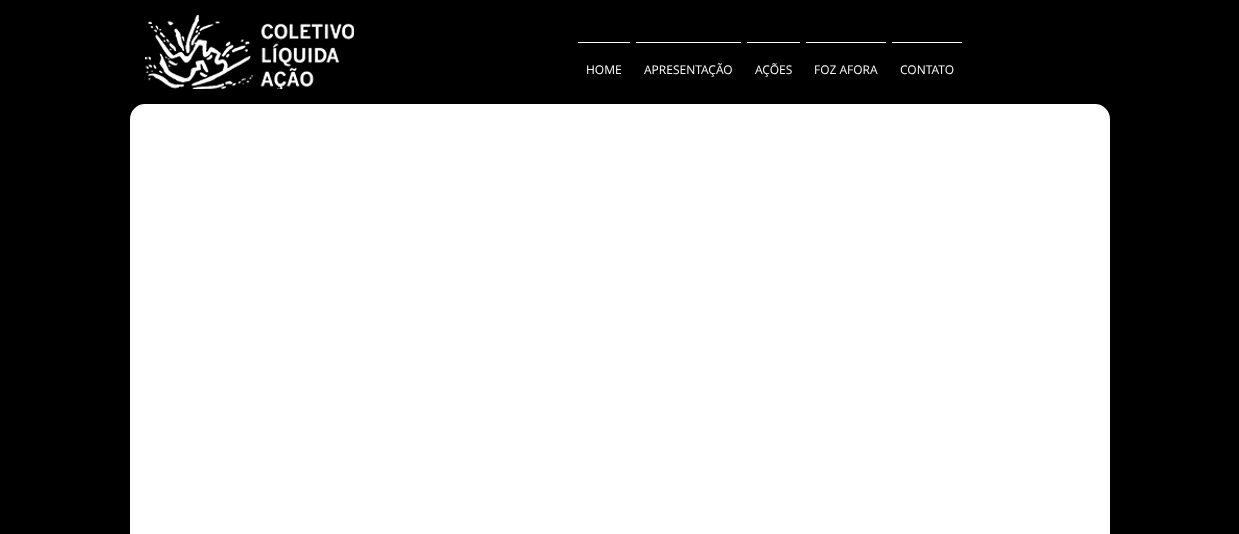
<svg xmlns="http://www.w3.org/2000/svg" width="1239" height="534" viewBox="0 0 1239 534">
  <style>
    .t1 { font: 12px Open Sans; fill: #fff; }
  </style>
  <rect width="100%" height="100%" fill="#000"/>
  <image x="145" y="15" width="209" height="74" href="images/1.png"/>
  <rect x="578" y="42" width="52" height="1" fill="#fff"/>
  <text x="586" y="74" class="t1">HOME</text>
  <rect x="636" y="42" width="105" height="1" fill="#fff"/>
  <text x="644" y="74" class="t1">APRESENTAÇÃO</text>
  <rect x="747" y="42" width="53" height="1" fill="#fff"/>
  <text x="755" y="74" class="t1">AÇÕES</text>
  <rect x="806" y="42" width="80" height="1" fill="#fff"/>
  <text x="814" y="74" class="t1">FOZ AFORA</text>
  <rect x="892" y="42" width="70" height="1" fill="#fff"/>
  <text x="900" y="74" class="t1">CONTATO</text>
  <rect x="130" y="104" width="980" height="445" rx="15" fill="#fff"/>
</svg>
